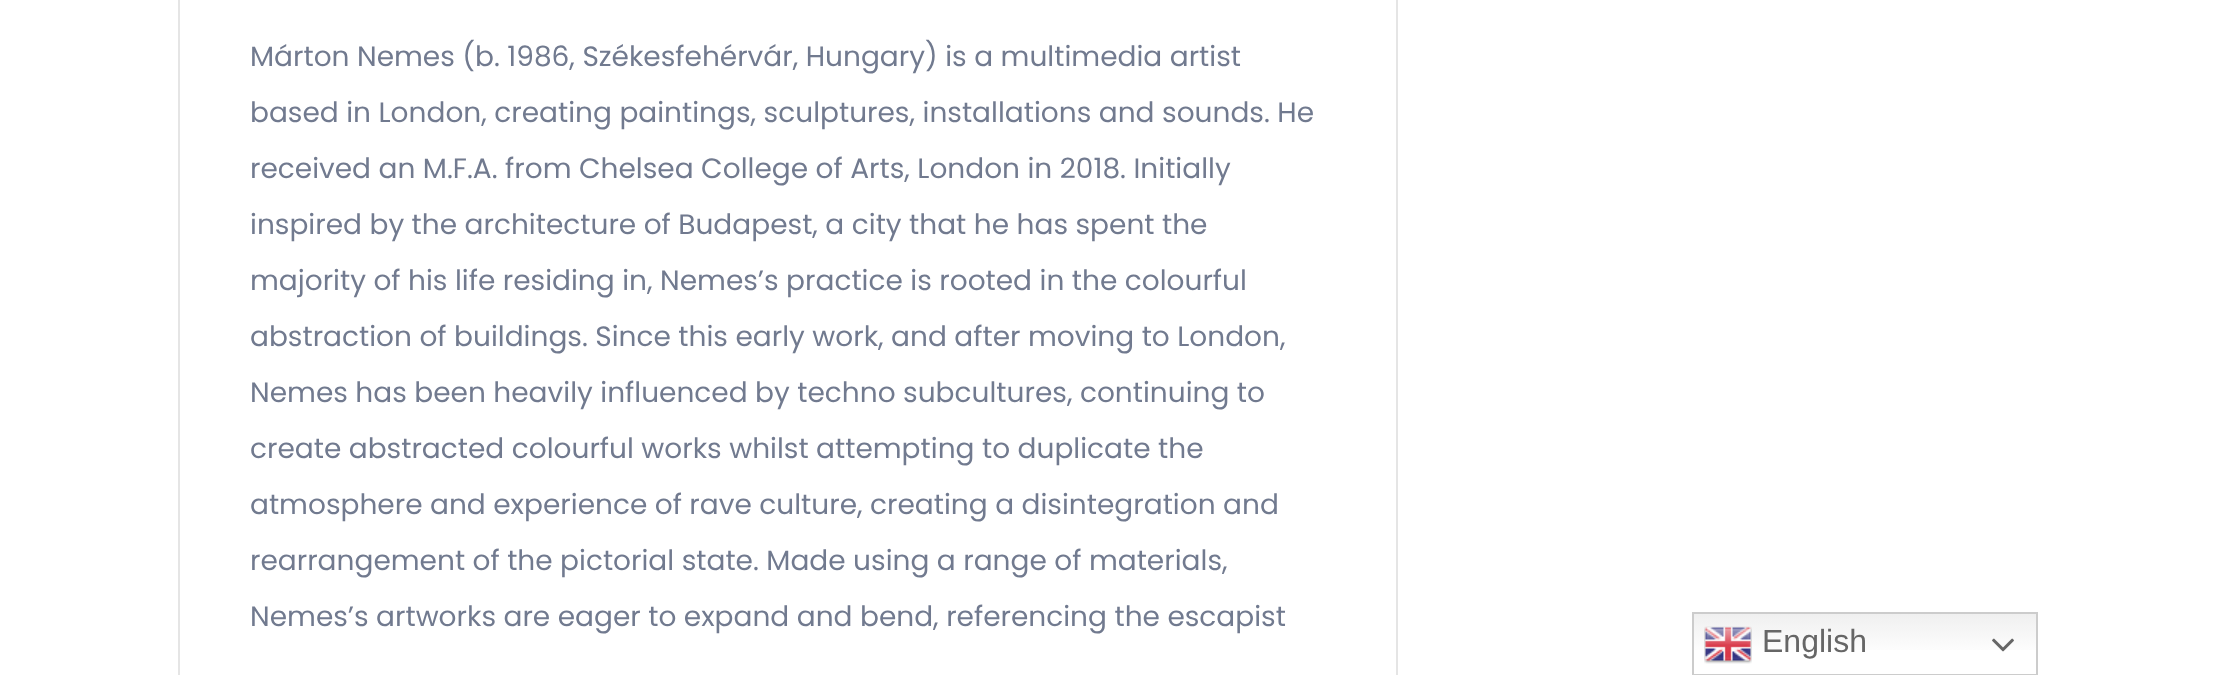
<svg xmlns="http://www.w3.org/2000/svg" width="2215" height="675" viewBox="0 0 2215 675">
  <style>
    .t1 { font: 28px Poppins; fill: #717a8f; }
    .t2 { font: 32px Liberation Sans; fill: #666; }
  </style>
  <defs>
    <linearGradient id="g1" gradientUnits="userSpaceOnUse" x1="1865" y1="612" x2="1865" y2="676"><stop offset="0" stop-color="#efefef"/><stop offset="0.7" stop-color="#fff"/></linearGradient>
  </defs>
  <rect width="100%" height="100%" fill="#fff"/>
  <rect x="179" y="-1" width="1218" height="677" fill="none" stroke="#e5e5e5" stroke-width="2"/>
  <text x="250" y="66" class="t1">Márton Nemes (b. 1986, Székesfehérvár, Hungary) is a multimedia artist</text>
  <text x="250" y="122" class="t1">based in London, creating paintings, sculptures, installations and sounds. He</text>
  <text x="250" y="178" class="t1">received an M.F.A. from Chelsea College of Arts, London in 2018. Initially</text>
  <text x="250" y="234" class="t1">inspired by the architecture of Budapest, a city that he has spent the</text>
  <text x="250" y="290" class="t1">majority of his life residing in, Nemes’s practice is rooted in the colourful</text>
  <text x="250" y="346" class="t1">abstraction of buildings. Since this early work, and after moving to London,</text>
  <text x="250" y="402" class="t1">Nemes has been heavily influenced by techno subcultures, continuing to</text>
  <text x="250" y="458" class="t1">create abstracted colourful works whilst attempting to duplicate the</text>
  <text x="250" y="514" class="t1">atmosphere and experience of rave culture, creating a disintegration and</text>
  <text x="250" y="570" class="t1">rearrangement of the pictorial state. Made using a range of materials,</text>
  <text x="250" y="626" class="t1">Nemes’s artworks are eager to expand and bend, referencing the escapist</text>
  <rect x="1694" y="614" width="342" height="36" fill="url(#g1)"/>
  <rect x="1693" y="613" width="344" height="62" fill="none" stroke="#ccc" stroke-width="2"/>
  <image x="1704" y="626" width="48" height="38" href="images/1.png"/>
  <text x="1762" y="652" class="t2">English</text>
  <image x="1992" y="638" width="22" height="14" href="images/2.png"/>
</svg>
